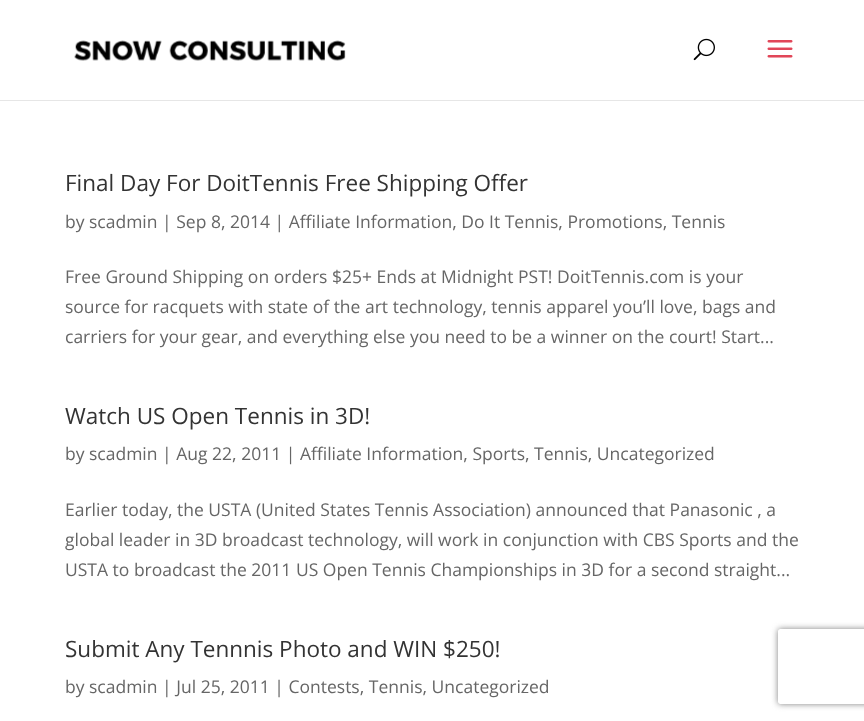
<svg xmlns="http://www.w3.org/2000/svg" width="864" height="721" viewBox="0 0 864 721">
  <style>
    .t1 { font: 22.5px Open Sans; fill: #333; }
    .t2 { font: 17.5px Open Sans; fill: #666; }
  </style>
  <defs>
    <clipPath id="clip1"><path d="M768 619H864V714H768ZM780.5 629H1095.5C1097 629 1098 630 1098 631.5V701.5C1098 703 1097 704 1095.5 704H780.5C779 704 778 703 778 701.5V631.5C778 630 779 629 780.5 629Z" clip-rule="evenodd"/></clipPath>
  </defs>
  <rect width="100%" height="100%" fill="#fff"/>
  <rect x="0" y="100" width="864" height="1" fill="#e6e6e6"/>
  <image x="74" y="40" width="272" height="21" href="images/1.png"/>
  <image x="693" y="38" width="22" height="23" href="images/2.png"/>
  <image x="767" y="40" width="26" height="18" href="images/3.png"/>
  <text x="65" y="191" class="t1">Final Day For DoitTennis Free Shipping Offer</text>
  <text x="65" y="228" class="t2">by scadmin | Sep 8, 2014 | Affiliate Information, Do It Tennis, Promotions, Tennis</text>
  <text x="65" y="283" class="t2">Free Ground Shipping on orders $25+ Ends at Midnight PST! DoitTennis.com is your</text>
  <text x="65" y="313" class="t2">source for racquets with state of the art technology, tennis apparel you’ll love, bags and</text>
  <text x="65" y="343" class="t2">carriers for your gear, and everything else you need to be a winner on the court! Start...</text>
  <text x="65" y="424" class="t1">Watch US Open Tennis in 3D!</text>
  <text x="65" y="460" class="t2">by scadmin | Aug 22, 2011 | Affiliate Information, Sports, Tennis, Uncategorized</text>
  <text x="65" y="516" class="t2">Earlier today, the USTA (United States Tennis Association) announced that Panasonic , a</text>
  <text x="65" y="546" class="t2">global leader in 3D broadcast technology, will work in conjunction with CBS Sports and the</text>
  <text x="65" y="576" class="t2">USTA to broadcast the 2011 US Open Tennis Championships in 3D for a second straight...</text>
  <text x="65" y="657" class="t1">Submit Any Tennnis Photo and WIN $250!</text>
  <text x="65" y="693" class="t2">by scadmin | Jul 25, 2011 | Contests, Tennis, Uncategorized</text>
  <g clip-path="url(#clip1)">
    <rect x="778" y="629" width="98" height="75" rx="2.5" fill="#808080" filter="blur(3px)"/>
  </g>
</svg>
